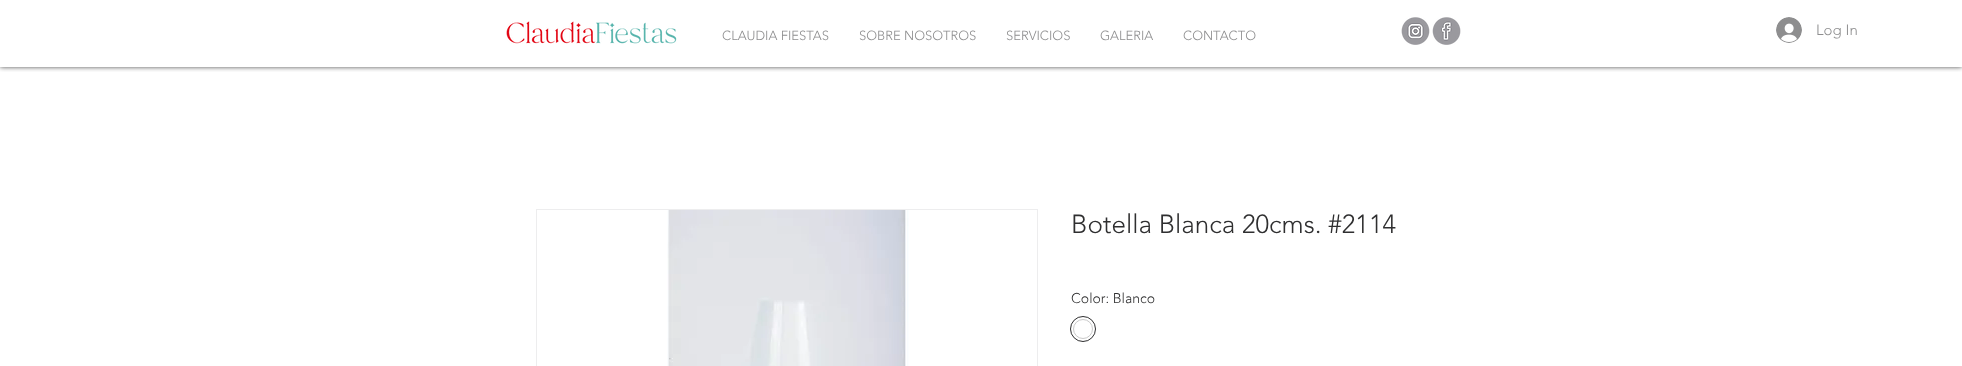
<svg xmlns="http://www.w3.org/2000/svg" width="1962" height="366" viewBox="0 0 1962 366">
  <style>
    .t1 { font: 300 13px 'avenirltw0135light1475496'; fill: #8e8e8f; }
    .t2 { font: 300 15px 'avenirltw0135light1475496'; fill: #8e8e8f; }
    .t3 { font: 300 26px 'avenirltw0135light1475496'; fill: #2f2f30; }
    .t4 { font: 300 14px 'avenirltw0135light1475496'; fill: #2f2f30; }
  </style>
  <defs>
    <clipPath id="clip1"><rect x="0" y="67" width="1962" height="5"/></clipPath>
  </defs>
  <rect width="100%" height="100%" fill="#fff"/>
  <g clip-path="url(#clip1)">
    <rect x="0" y="0" width="1962" height="67" fill="#000000b3" filter="blur(2.5px)"/>
  </g>
  <image x="506" y="21" width="171" height="23" href="images/1.png"/>
  <image x="1401" y="17" width="29" height="28" href="images/2.png"/>
  <image x="1432" y="17" width="29" height="28" href="images/3.png"/>
  <text x="722" y="40" class="t1">CLAUDIA FIESTAS</text>
  <text x="859" y="40" class="t1">SOBRE NOSOTROS</text>
  <text x="1006" y="40" class="t1">SERVICIOS</text>
  <text x="1100" y="40" class="t1">GALERIA</text>
  <text x="1183" y="40" class="t1">CONTACTO</text>
  <image x="1776" y="17" width="26" height="26" href="images/4.png"/>
  <text x="1816" y="35" class="t2">Log In</text>
  <rect x="536.5" y="209.5" width="501" height="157" fill="none" stroke="#ededee"/>
  <image x="667" y="210" width="242" height="156" href="images/5.png"/>
  <text x="1071" y="233" class="t3">Botella Blanca 20cms. #2114</text>
  <text x="1071" y="303" class="t4">Color: Blanco</text>
  <circle cx="1083" cy="329" r="12.5" fill="none" stroke="#2f2f30"/>
  <circle cx="1083" cy="329" r="9.5" fill="none" stroke="#c9c9c9"/>
</svg>
